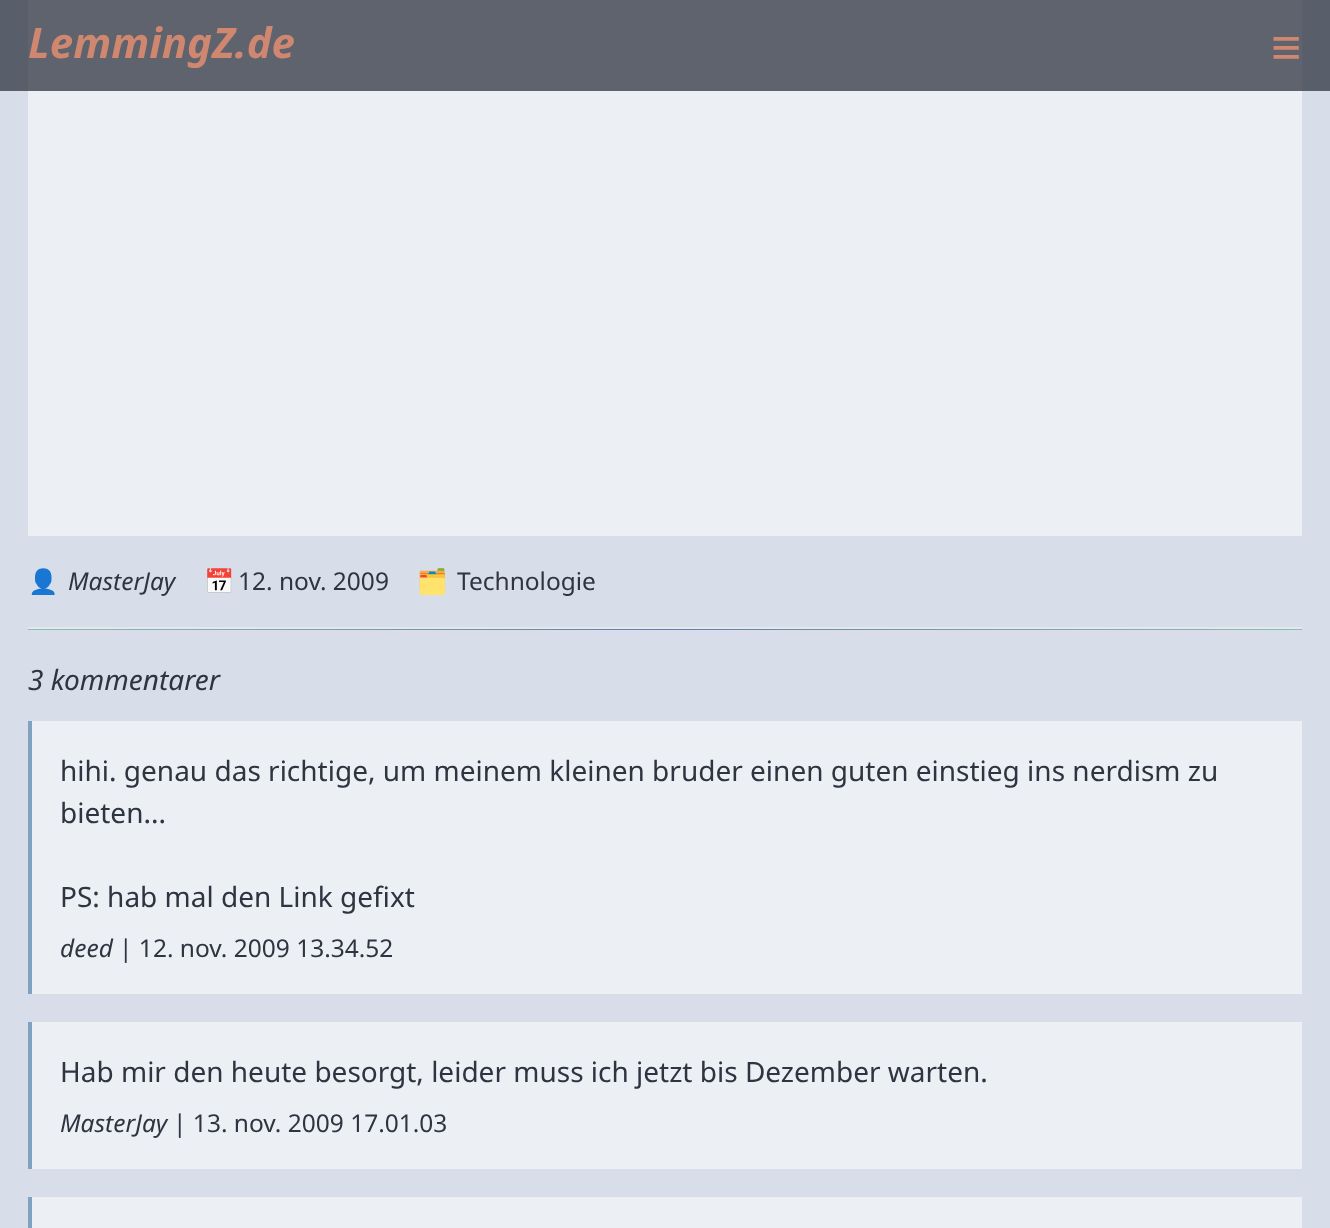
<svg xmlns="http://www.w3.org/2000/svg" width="1330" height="1228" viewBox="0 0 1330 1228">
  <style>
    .t1 { font: italic bold 42px Noto Sans; fill: #d08770; }
    .t2 { font: 52px Liberation Sans; fill: #d08770; }
    .t3 { font: 24.5px Noto Color Emoji; fill: #2e3440; }
    .t4 { font: italic 24.5px Noto Sans; fill: #2e3440; }
    .t5 { font: 24.5px Noto Sans; fill: #2e3440; }
    .t6 { font: italic 28px Noto Sans; fill: #2e3440; }
    .t7 { font: 28px Noto Sans; fill: #2e3440; }
  </style>
  <defs>
    <linearGradient id="g1" gradientUnits="userSpaceOnUse" x1="28" y1="629" x2="1302" y2="629"><stop offset="0" stop-color="#8fbcbb"/><stop offset="0.5" stop-color="#5e81ac"/><stop offset="1" stop-color="#8fbcbb"/></linearGradient>
  </defs>
  <rect width="100%" height="100%" fill="#d8dee9"/>
  <rect x="0" y="0" width="1330" height="91" fill="#595f6a"/>
  <rect x="28" y="0" width="1274" height="91" fill="#5e636d"/>
  <text x="28" y="58" class="t1">LemmingZ.de</text>
  <text x="1271" y="65" class="t2">≡</text>
  <rect x="28" y="91" width="1274" height="445" fill="#eceff4"/>
  <text x="28" y="590" class="t3">👤</text>
  <text x="68" y="590" class="t4">MasterJay</text>
  <text x="204" y="590" class="t3">📅</text>
  <text x="238" y="590" class="t5">12. nov. 2009</text>
  <text x="417" y="590" class="t3">🗂</text>
  <text x="457" y="590" class="t5">Technologie</text>
  <rect x="28" y="629" width="1274" height="1" fill="url(#g1)"/>
  <rect x="28" y="627" width="1274" height="2" fill="#e5e7eb"/>
  <text x="28" y="690" class="t6">3 kommentarer</text>
  <rect x="32" y="721" width="1270" height="273" fill="#eceff4"/>
  <rect x="28" y="721" width="4" height="273" fill="#81a1c1"/>
  <text x="60" y="781" class="t7">hihi. genau das richtige, um meinem kleinen bruder einen guten einstieg ins nerdism zu</text>
  <text x="60" y="823" class="t7">bieten...</text>
  <text x="60" y="907" class="t7">PS: hab mal den Link gefixt</text>
  <text x="60" y="957" class="t4">deed</text>
  <text x="119" y="957" class="t5">| 12. nov. 2009 13.34.52</text>
  <rect x="32" y="1022" width="1270" height="147" fill="#eceff4"/>
  <rect x="28" y="1022" width="4" height="147" fill="#81a1c1"/>
  <text x="60" y="1082" class="t7">Hab mir den heute besorgt, leider muss ich jetzt bis Dezember warten.</text>
  <text x="60" y="1132" class="t4">MasterJay</text>
  <text x="173" y="1132" class="t5">| 13. nov. 2009 17.01.03</text>
  <rect x="32" y="1197" width="1270" height="31" fill="#eceff4"/>
  <rect x="28" y="1197" width="4" height="31" fill="#81a1c1"/>
</svg>
